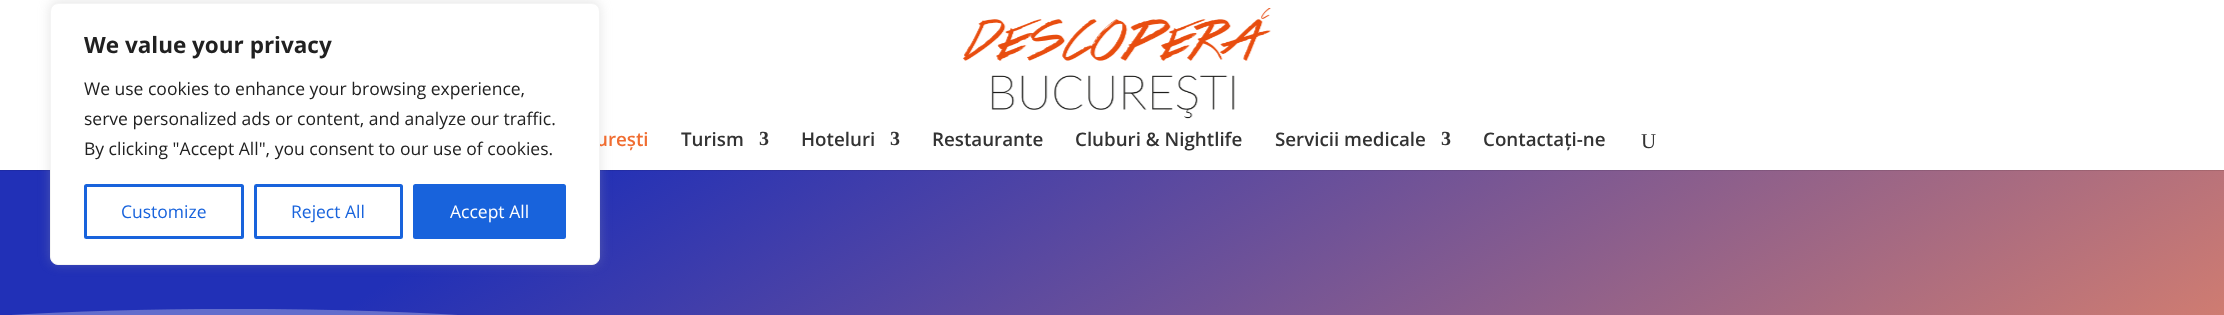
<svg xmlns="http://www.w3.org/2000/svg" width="2224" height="315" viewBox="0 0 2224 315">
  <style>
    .t1 { font: 600 18.75px Open Sans; fill: #f06d31; }
    .t2 { font: bold 22.5px Open Sans; fill: #212121; }
    .t3 { font: 17.5px Open Sans; fill: #212121; }
    .t4 { font: 17.5px Open Sans; fill: #1863dc; }
    .t5 { font: 17.5px Open Sans; fill: #fff; }
    .t6 { font: 600 18.75px Open Sans; fill: #333; }
    .t7 { font: bold 20px Liberation Serif; fill: #333; }
    .t8 { font: 21px Liberation Serif; fill: #333; }
  </style>
  <defs>
    <linearGradient id="g1" gradientUnits="userSpaceOnUse" x1="694" y1="-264" x2="1531" y2="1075"><stop offset="0.19" stop-color="#2130b7"/><stop offset="1" stop-color="#ff915e"/></linearGradient>
    <linearGradient id="g2" gradientUnits="userSpaceOnUse" x1="694" y1="-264" x2="1531" y2="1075"><stop offset="0.19" stop-color="#1e2ba5"/><stop offset="1" stop-color="#e68355"/></linearGradient>
  </defs>
  <rect width="100%" height="100%" fill="#fff"/>
  <rect x="0" y="171" width="2224" height="144" fill="url(#g1)"/>
  <rect x="0" y="170" width="2224" height="1" fill="url(#g2)"/>
  <rect x="50" y="1" width="550" height="263" rx="8" fill="#acabab4d" filter="blur(6px)"/>
  <text x="596" y="146" class="t1">urești</text>
  <rect x="50.5" y="3.5" width="549" height="261" rx="7.5" fill="#fff" stroke="#f4f4f4"/>
  <text x="84" y="53" class="t2">We value your privacy</text>
  <text x="84" y="95" class="t3">We use cookies to enhance your browsing experience,</text>
  <text x="84" y="125" class="t3">serve personalized ads or content, and analyze our traffic.</text>
  <text x="84" y="155" class="t3">By clicking "Accept All", you consent to our use of cookies.</text>
  <rect x="85.5" y="185.5" width="157" height="52" rx="1" fill="none" stroke="#1863dc" stroke-width="3"/>
  <text x="121" y="218" class="t4">Customize</text>
  <rect x="255.5" y="185.5" width="146" height="52" rx="1" fill="none" stroke="#1863dc" stroke-width="3"/>
  <text x="291" y="218" class="t4">Reject All</text>
  <rect x="414.5" y="185.5" width="150" height="52" rx="1" fill="#1863dc" stroke="#1863dc" stroke-width="3"/>
  <text x="450" y="218" class="t5">Accept All</text>
  <image x="962" y="8" width="309" height="111" href="images/1.png"/>
  <text x="681" y="146" class="t6">Turism</text>
  <text x="759" y="145" class="t7">3</text>
  <text x="801" y="146" class="t6">Hoteluri</text>
  <text x="890" y="145" class="t7">3</text>
  <text x="932" y="146" class="t6">Restaurante</text>
  <text x="1075" y="146" class="t6">Cluburi &amp; Nightlife</text>
  <text x="1275" y="146" class="t6">Servicii medicale</text>
  <text x="1441" y="145" class="t7">3</text>
  <text x="1483" y="146" class="t6">Contactați-ne</text>
  <text x="1641" y="148" class="t8">U</text>
  <image x="12" y="309" width="445" height="6" href="images/2.png"/>
</svg>
